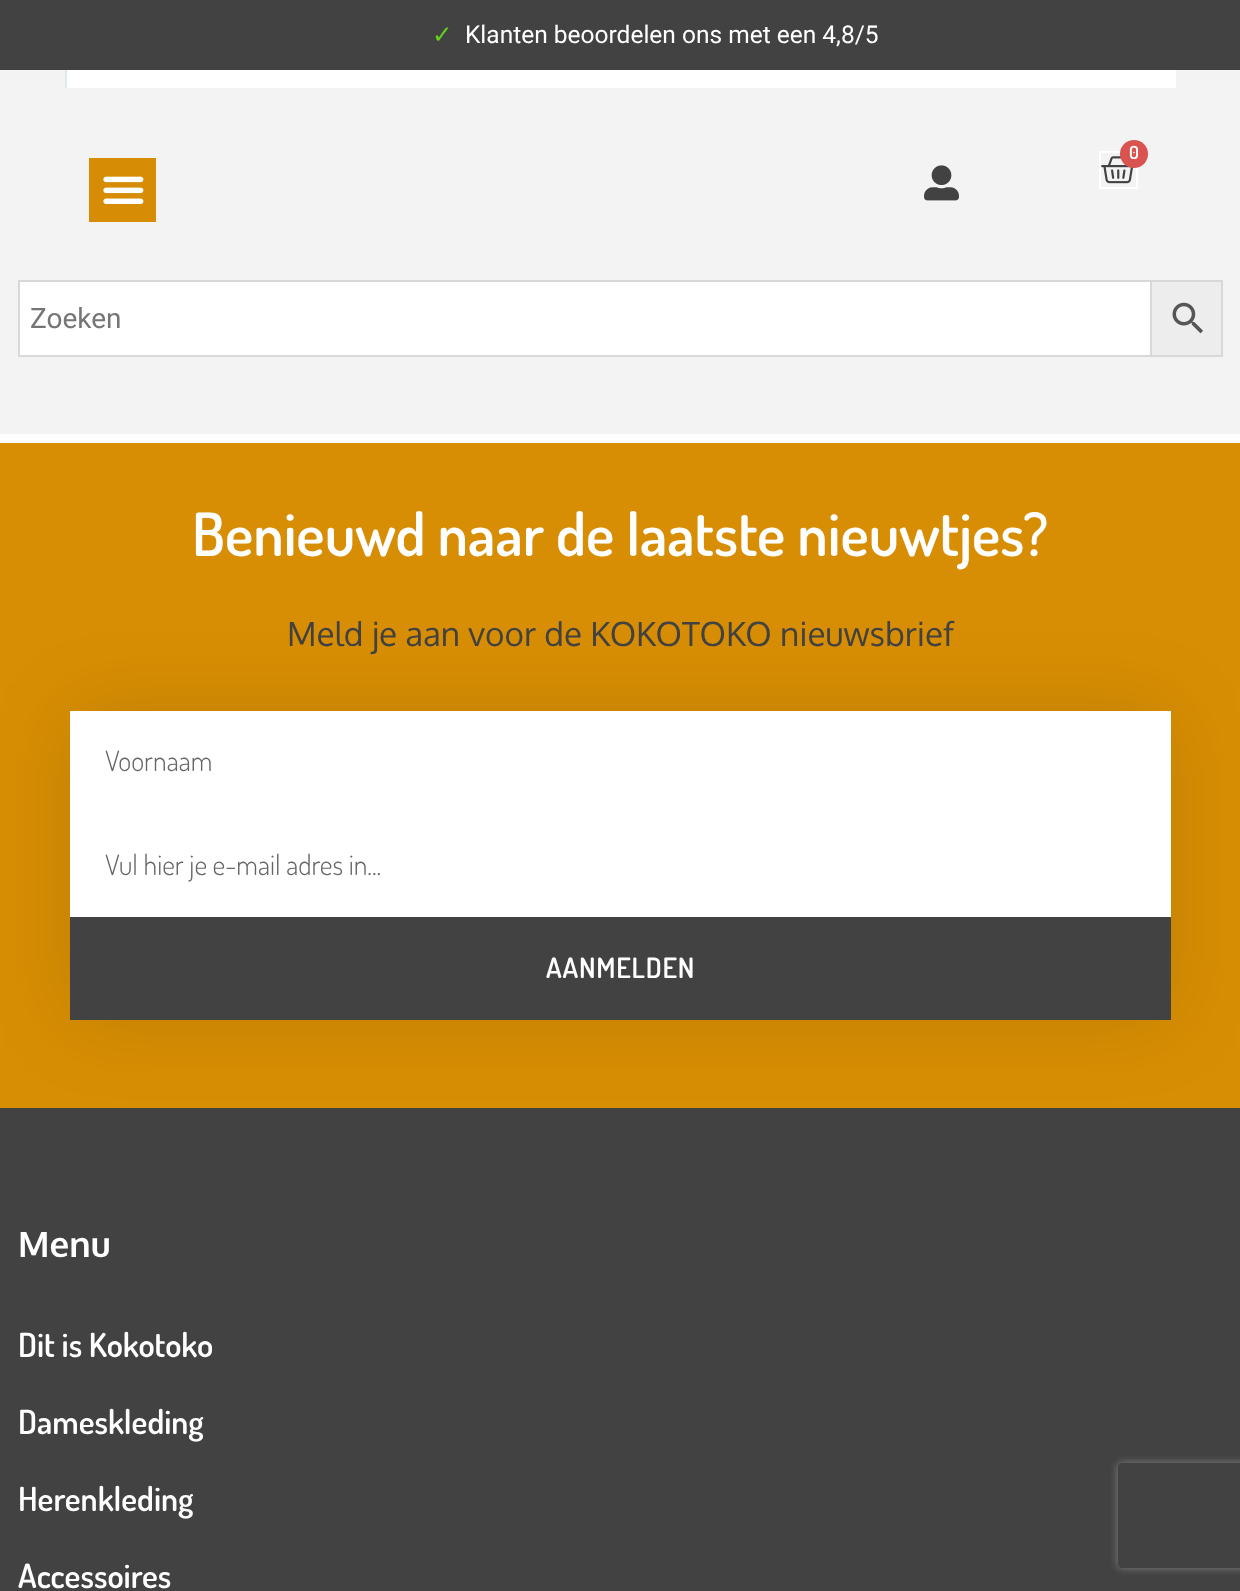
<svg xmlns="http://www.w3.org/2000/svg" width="1240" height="1591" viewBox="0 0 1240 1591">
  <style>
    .t1 { font: 24.5px DejaVu Sans; fill: #63d11f; }
    .t2 { font: 24.5px Roboto; fill: #fff; }
    .t3 { font: 600 18px Dosis; fill: #fff; }
    .t4 { font: 28px Roboto; fill: #757575; }
    .t5 { font: 600 59.5px Dosis; fill: #fff; }
    .t6 { font: 33.25px Oxygen; fill: #424242; }
    .t7 { font: 300 28px Dosis; fill: #666; }
    .t8 { font: 600 28px Dosis; letter-spacing: 0.75px; fill: #fff; }
    .t9 { font: bold 35px Oxygen; fill: #fff; }
    .t10 { font: 600 33.25px Dosis; fill: #fff; }
  </style>
  <defs>
    <clipPath id="clip1"><rect x="65" y="0" width="1111" height="229"/></clipPath>
    <clipPath id="clip2"><path d="M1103 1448H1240V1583H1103ZM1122 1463H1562C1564 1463 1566 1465 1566 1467V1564C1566 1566 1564 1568 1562 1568H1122C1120 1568 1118 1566 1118 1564V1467C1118 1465 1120 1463 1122 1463Z" clip-rule="evenodd"/></clipPath>
  </defs>
  <rect width="100%" height="100%" fill="#fff"/>
  <rect x="0" y="70" width="1240" height="364" fill="#f3f3f3"/>
  <g clip-path="url(#clip1)">
    <rect x="66" y="-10" width="1111" height="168" rx="8" fill="#fff" stroke="#e1e8ed" stroke-width="2"/>
  </g>
  <rect x="0" y="0" width="1240" height="70" fill="#424242"/>
  <text x="432" y="43" class="t1">✓</text>
  <text x="465" y="43" class="t2">Klanten beoordelen ons met een 4,8/5</text>
  <rect x="65" y="88" width="1111" height="71" fill="#f3f3f3"/>
  <rect x="1100" y="152" width="37" height="36" fill="none" stroke="#fff" stroke-width="2"/>
  <image x="1101" y="156" width="34" height="28" href="images/1.png"/>
  <circle cx="1134" cy="154" r="14" fill="#d9534f"/>
  <text x="1129" y="159" class="t3">0</text>
  <image x="924" y="165" width="35" height="36" href="images/2.png"/>
  <rect x="89" y="158" width="67" height="64" fill="#d68d05"/>
  <image x="103" y="176" width="41" height="28" href="images/3.png"/>
  <rect x="1151" y="281" width="71" height="75" fill="#ededed" stroke="#d8d8d8" stroke-width="2"/>
  <rect x="19" y="281" width="1132" height="75" fill="#fff" stroke="#d8d8d8" stroke-width="2"/>
  <text x="30" y="328" class="t4">Zoeken</text>
  <image x="1172" y="302" width="31" height="32" href="images/4.png"/>
  <rect x="0" y="443" width="1240" height="665" fill="#d88e04"/>
  <text x="192" y="556" class="t5">Benieuwd naar de laatste nieuwtjes?</text>
  <text x="287" y="646" class="t6">Meld je aan voor de KOKOTOKO nieuwsbrief</text>
  <rect x="70" y="711" width="1101" height="309" fill="#0000001c" filter="blur(42px)"/>
  <rect x="70" y="711" width="1101" height="206" fill="#fff"/>
  <text x="105" y="771" class="t7">Voornaam</text>
  <text x="105" y="875" class="t7">Vul hier je e-mail adres in...</text>
  <rect x="70" y="917" width="1101" height="103" fill="#424242"/>
  <text x="546" y="978" class="t8">AANMELDEN</text>
  <rect x="0" y="1108" width="1240" height="483" fill="#424242"/>
  <text x="18" y="1257" class="t9">Menu</text>
  <text x="18" y="1357" class="t10">Dit is Kokotoko</text>
  <text x="18" y="1434" class="t10">Dameskleding</text>
  <text x="18" y="1511" class="t10">Herenkleding</text>
  <text x="18" y="1588" class="t10">Accessoires</text>
  <g clip-path="url(#clip2)">
    <rect x="1118" y="1463" width="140" height="105" rx="4" fill="#808080" filter="blur(4.5px)"/>
  </g>
</svg>
